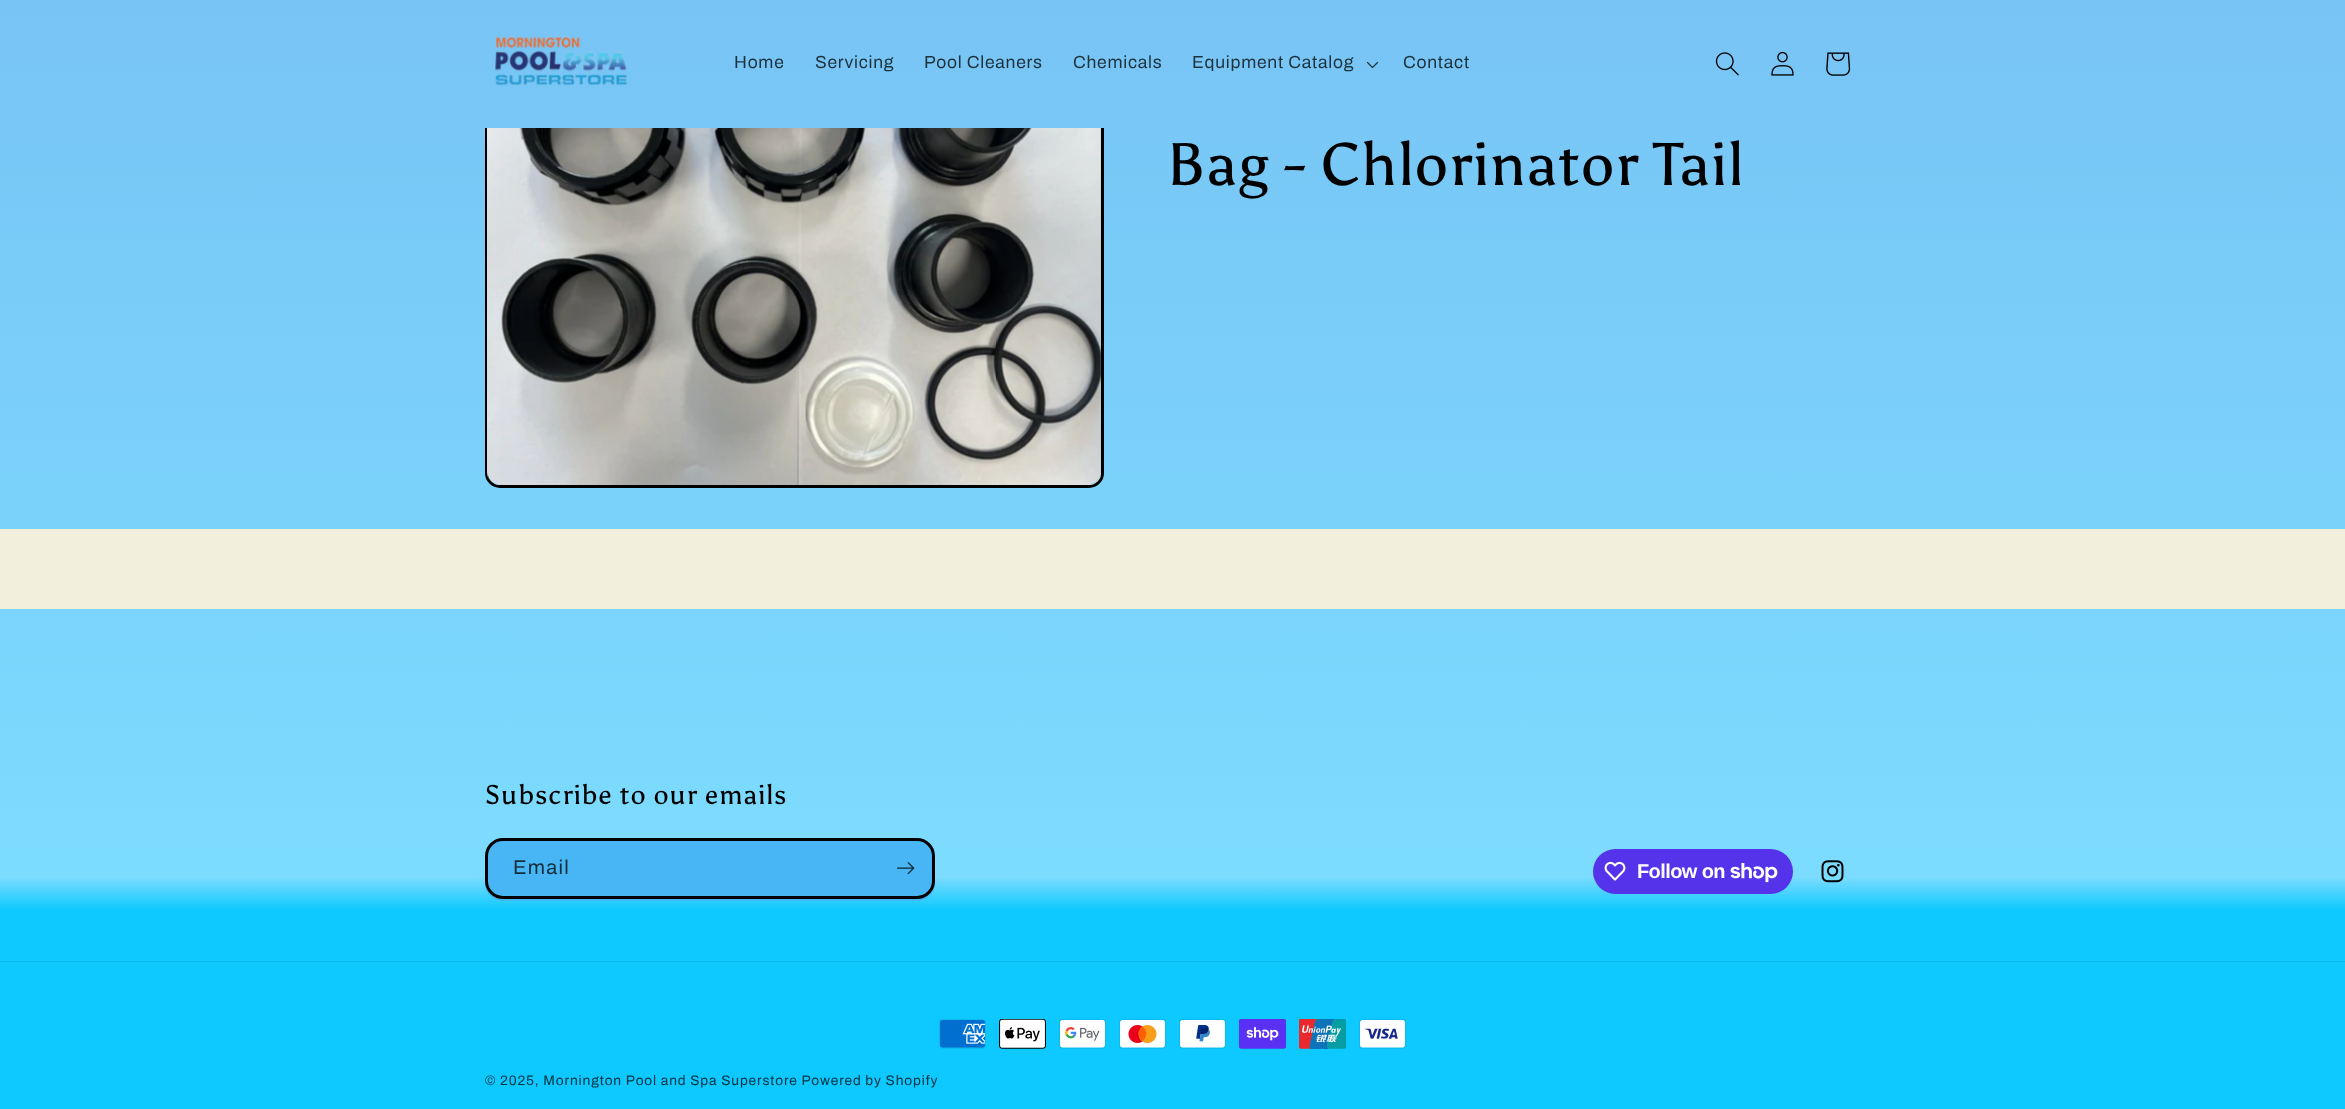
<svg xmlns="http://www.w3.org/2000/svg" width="2345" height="1109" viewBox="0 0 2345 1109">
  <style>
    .t1 { font: 17.5px Archivo; letter-spacing: 0.75px; fill: #1e323e; }
    .t2 { font: 60px Asul; letter-spacing: 0.9px; fill: #000; }
    .t3 { font: 27px Asul; letter-spacing: 0.9px; fill: #000; }
    .t4 { font: 20px Archivo; letter-spacing: 1.25px; fill: #122e3d; }
    .t5 { font: bold 20px Liberation Sans; letter-spacing: -0.6px; fill: #fff; }
    .t6 { font: 13.75px Archivo; letter-spacing: 0.88px; fill: #033240; }
  </style>
  <defs>
    <linearGradient id="g1" gradientUnits="userSpaceOnUse" x1="1173" y1="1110" x2="1173" y2="0"><stop offset="0.18" stop-color="#0dc9ff"/><stop offset="0.21" stop-color="#7cdcff"/><stop offset="1" stop-color="#78c4f5"/></linearGradient>
  </defs>
  <rect width="100%" height="100%" fill="#f2efdd"/>
  <rect x="0" y="128" width="2345" height="401" fill="url(#g1)"/>
  <rect x="486.5" y="39.5" width="616" height="447" rx="13.5" fill="url(#g1)" stroke="#000" stroke-width="3"/>
  <rect x="0" y="0" width="2345" height="128" fill="url(#g1)"/>
  <image x="495" y="36" width="133" height="50" href="images/1.png"/>
  <text x="734" y="68" class="t1">Home</text>
  <text x="815" y="68" class="t1">Servicing</text>
  <text x="924" y="68" class="t1">Pool Cleaners</text>
  <text x="1073" y="68" class="t1">Chemicals</text>
  <text x="1192" y="68" class="t1">Equipment Catalog</text>
  <image x="1366" y="61" width="13" height="8" href="images/2.png"/>
  <text x="1403" y="68" class="t1">Contact</text>
  <image x="1715" y="52" width="24" height="24" href="images/3.png"/>
  <image x="1771" y="51" width="23" height="25" href="images/4.png"/>
  <image x="1826" y="52" width="25" height="24" href="images/5.png"/>
  <image x="487" y="128" width="614" height="357" href="images/6.png"/>
  <text x="1166" y="185" class="t2">Bag - Chlorinator Tail</text>
  <rect x="0" y="609" width="2345" height="120" fill="url(#g1)"/>
  <rect x="0" y="729" width="2345" height="380" fill="url(#g1)"/>
  <text x="485" y="804" class="t3">Subscribe to our emails</text>
  <path d="M485 881V883C485 893 493 901 503 901H917C927 901 935 893 935 883V881C935 891 927 899 918 899H502C493 899 485 891 485 881Z" fill="#48b6f4"/>
  <rect x="488" y="840" width="445" height="56" rx="15" fill="#48b6f4"/>
  <rect x="486.5" y="839.5" width="447" height="58" rx="16.5" fill="none" stroke="#000" stroke-width="3"/>
  <text x="513" y="874" class="t4">Email</text>
  <image x="897" y="862" width="18" height="13" href="images/7.png"/>
  <rect x="1593" y="849" width="200" height="45" rx="22.5" fill="#5433eb"/>
  <image x="1604" y="861" width="22" height="20" href="images/8.png"/>
  <text x="1637" y="878" class="t5">Follow on</text>
  <image x="1730" y="863" width="48" height="20" href="images/9.png"/>
  <image x="1821" y="860" width="23" height="23" href="images/10.png"/>
  <rect x="0" y="961" width="2345" height="1" fill="#0cb9eb"/>
  <image x="939" y="1019" width="47" height="30" href="images/11.png"/>
  <image x="999" y="1019" width="47" height="30" href="images/12.png"/>
  <image x="1059" y="1019" width="47" height="30" href="images/13.png"/>
  <image x="1119" y="1019" width="47" height="30" href="images/14.png"/>
  <image x="1179" y="1019" width="47" height="30" href="images/15.png"/>
  <image x="1239" y="1019" width="47" height="30" href="images/16.png"/>
  <image x="1299" y="1019" width="47" height="30" href="images/17.png"/>
  <image x="1359" y="1019" width="47" height="30" href="images/18.png"/>
  <text x="485" y="1085" class="t6">© 2025, Mornington Pool and Spa Superstore Powered by Shopify</text>
</svg>
